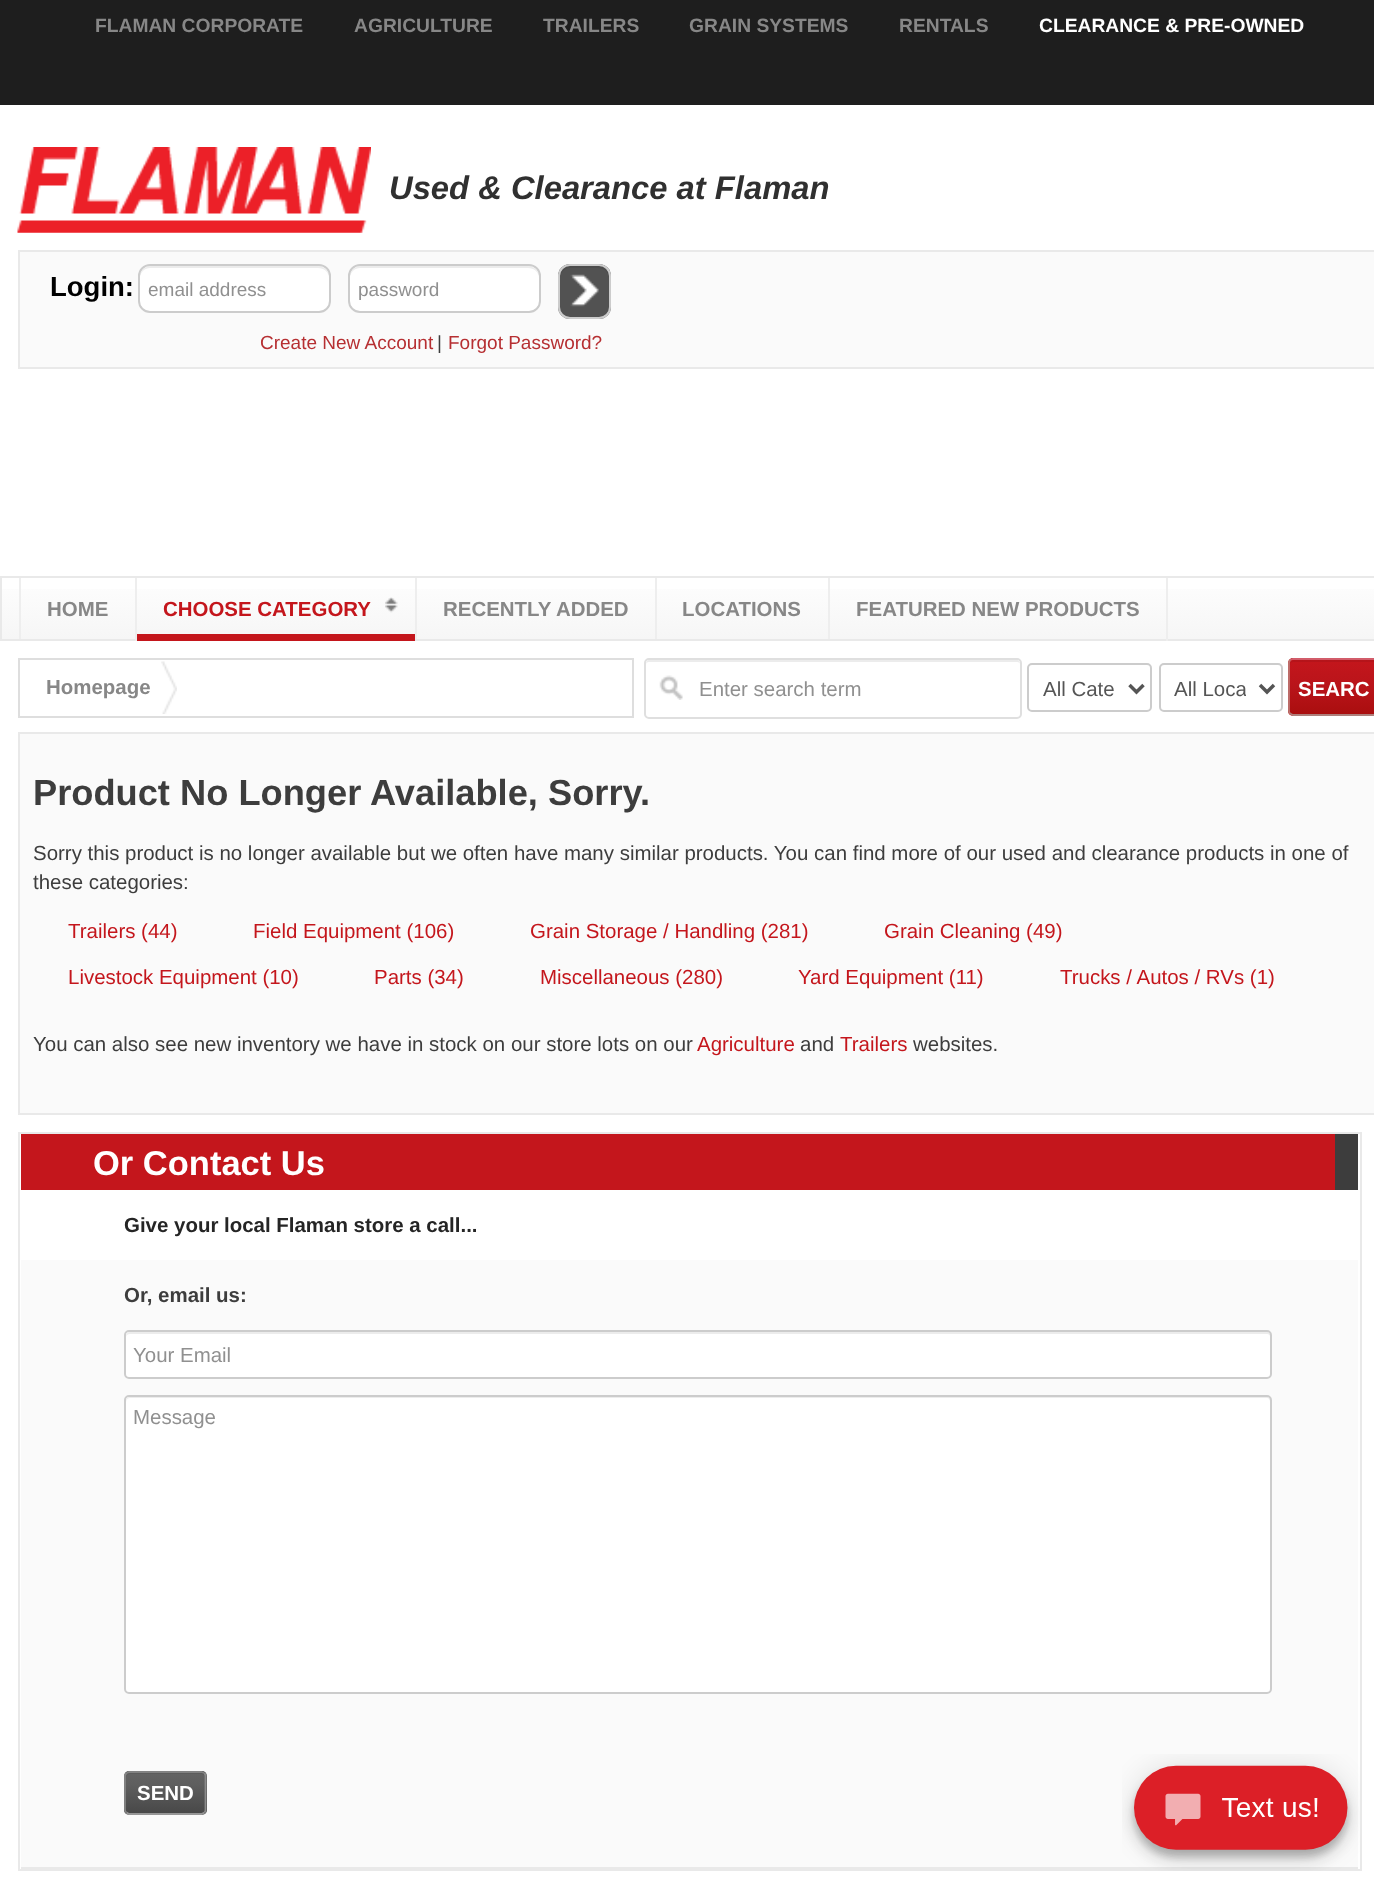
<svg xmlns="http://www.w3.org/2000/svg" width="1374" height="1886" viewBox="0 0 1374 1886">
  <style>
    .t1 { font: bold 19.25px Liberation Sans; fill: #878787; }
    .t2 { font: bold 19.25px Liberation Sans; fill: #fff; }
    .t3 { font: italic bold 32.75px Liberation Sans; fill: #303030; }
    .t4 { font: bold 27.5px Liberation Sans; fill: #000; }
    .t5 { font: 19px Liberation Sans; fill: #909090; }
    .t6 { font: 19px Liberation Sans; fill: #b62f32; }
    .t7 { font: 19px Liberation Sans; fill: #3d3d3d; }
    .t8 { font: bold 20.47px Liberation Sans; fill: #878787; }
    .t9 { font: bold 20.47px Liberation Sans; fill: #c4161c; }
    .t10 { font: 20.47px Liberation Sans; fill: #909090; }
    .t11 { font: 20.47px Liberation Sans; fill: #555; }
    .t12 { font: bold 20.47px Liberation Sans; fill: #fff; }
    .t13 { font: bold 36.25px Liberation Sans; fill: #3d3d3d; }
    .t14 { font: 20.47px Liberation Sans; fill: #3d3d3d; }
    .t15 { font: 20.47px Liberation Sans; fill: #c4161c; }
    .t16 { font: bold 34.5px Liberation Sans; fill: #fff; }
    .t17 { font: bold 20.47px Liberation Sans; fill: #252525; }
    .t18 { font: bold 20.47px Liberation Sans; fill: #3d3d3d; }
  </style>
  <defs>
    <linearGradient id="g1" gradientUnits="userSpaceOnUse" x1="688" y1="577" x2="688" y2="639"><stop offset="0" stop-color="#fefefe"/><stop offset="1" stop-color="#f6f6f6"/></linearGradient>
    <clipPath id="clip1"><rect x="1174" y="676" width="72" height="26"/></clipPath>
    <clipPath id="clip2"><rect x="1288" y="658" width="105" height="58" rx="5"/></clipPath>
    <linearGradient id="g2" gradientUnits="userSpaceOnUse" x1="1341" y1="606" x2="1341" y2="660"><stop offset="0" stop-color="#c4161c"/><stop offset="0.48" stop-color="#b9141a"/><stop offset="1" stop-color="#aa0e0f"/></linearGradient>
    <linearGradient id="g3" gradientUnits="userSpaceOnUse" x1="1341" y1="660" x2="1341" y2="714"><stop offset="0" stop-color="#c4161c"/><stop offset="0.48" stop-color="#b9141a"/><stop offset="1" stop-color="#aa0e0f"/></linearGradient>
    <linearGradient id="g4" gradientUnits="userSpaceOnUse" x1="1341" y1="714" x2="1341" y2="768"><stop offset="0" stop-color="#c4161c"/><stop offset="0.48" stop-color="#b9141a"/><stop offset="1" stop-color="#aa0e0f"/></linearGradient>
    <clipPath id="clip3"><rect x="124" y="1771" width="83" height="44" rx="5"/></clipPath>
    <linearGradient id="g5" gradientUnits="userSpaceOnUse" x1="165" y1="1733" x2="165" y2="1773"><stop offset="0" stop-color="#636363"/><stop offset="0.3" stop-color="#5e5e5e"/><stop offset="1" stop-color="#484848"/></linearGradient>
    <linearGradient id="g6" gradientUnits="userSpaceOnUse" x1="165" y1="1773" x2="165" y2="1813"><stop offset="0" stop-color="#636363"/><stop offset="0.3" stop-color="#5e5e5e"/><stop offset="1" stop-color="#484848"/></linearGradient>
    <linearGradient id="g7" gradientUnits="userSpaceOnUse" x1="165" y1="1813" x2="165" y2="1853"><stop offset="0" stop-color="#636363"/><stop offset="0.3" stop-color="#5e5e5e"/><stop offset="1" stop-color="#484848"/></linearGradient>
  </defs>
  <rect width="100%" height="100%" fill="#fff"/>
  <rect x="0" y="0" width="1374" height="105" fill="#1e1e1e"/>
  <text x="95" y="32" class="t1">FLAMAN CORPORATE</text>
  <text x="354" y="32" class="t1">AGRICULTURE</text>
  <text x="543" y="32" class="t1">TRAILERS</text>
  <text x="689" y="32" class="t1">GRAIN SYSTEMS</text>
  <text x="899" y="32" class="t1">RENTALS</text>
  <text x="1039" y="32" class="t2">CLEARANCE &amp; PRE-OWNED</text>
  <image x="17" y="147" width="354" height="86" href="images/1.png"/>
  <text x="389" y="199" class="t3">Used &amp; Clearance at Flaman</text>
  <rect x="19" y="251" width="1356" height="117" fill="#fafafa" stroke="#e9e9e9" stroke-width="2"/>
  <text x="50" y="296" class="t4">Login:</text>
  <rect x="138" y="264" width="193" height="49" rx="12" fill="#fff"/>
  <path d="M150 268H318C324 268 329 272 329 278V277C329 271 324 266 318 266H151C145 266 140 271 140 277V278C140 272 145 268 150 268Z" fill="#ececec"/>
  <rect x="139" y="265" width="191" height="47" rx="11" fill="none" stroke="#ccc" stroke-width="2"/>
  <text x="148" y="296" class="t5">email address</text>
  <rect x="348" y="264" width="193" height="49" rx="12" fill="#fff"/>
  <path d="M360 268H528C534 268 539 272 539 278V277C539 271 534 266 528 266H361C355 266 350 271 350 277V278C350 272 355 268 360 268Z" fill="#ececec"/>
  <rect x="349" y="265" width="191" height="47" rx="11" fill="none" stroke="#ccc" stroke-width="2"/>
  <text x="358" y="296" class="t5">password</text>
  <rect x="558" y="264" width="53" height="55" rx="12" fill="#525252"/>
  <image x="570" y="274" width="29" height="33" href="images/2.png"/>
  <path d="M570 268H598C604 268 609 272 609 278C609 263 595 266 584 266C574 266 560 263 560 278C560 272 565 268 570 268Z" fill="#4c4c4c"/>
  <rect x="559" y="265" width="51" height="53" rx="11" fill="none" stroke="#ccc" stroke-width="2"/>
  <text x="260" y="349" class="t6">Create New Account</text>
  <text x="437" y="349" class="t7">|</text>
  <text x="448" y="349" class="t6">Forgot Password?</text>
  <rect x="2" y="589" width="1372" height="50" fill="url(#g1)"/>
  <rect x="1" y="577" width="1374" height="63" fill="none" stroke="#e9e9e9" stroke-width="2"/>
  <rect x="1166" y="578" width="2" height="63" fill="#eee"/>
  <rect x="19" y="578" width="2" height="61" fill="#eee"/>
  <text x="47" y="616" class="t8">HOME</text>
  <rect x="135" y="578" width="2" height="63" fill="#eee"/>
  <image x="385" y="597" width="13" height="16" href="images/3.png"/>
  <rect x="137" y="634" width="278" height="7" fill="#c4161c"/>
  <text x="163" y="616" class="t9">CHOOSE CATEGORY</text>
  <rect x="415" y="578" width="2" height="61" fill="#eee"/>
  <text x="443" y="616" class="t8">RECENTLY ADDED</text>
  <rect x="655" y="578" width="2" height="61" fill="#eee"/>
  <text x="682" y="616" class="t8">LOCATIONS</text>
  <rect x="828" y="578" width="2" height="61" fill="#eee"/>
  <text x="856" y="616" class="t8">FEATURED NEW PRODUCTS</text>
  <rect x="19" y="659" width="614" height="58" fill="none" stroke="#dedede" stroke-width="2"/>
  <image x="161" y="661" width="16" height="53" href="images/4.png"/>
  <text x="46" y="694" class="t8">Homepage</text>
  <image x="659" y="675" width="24" height="25" href="images/5.png"/>
  <path d="M649 662H1017C1019 662 1020 663 1020 665C1020 662 1019 660 1016 660H650C647 660 646 662 646 665C646 663 647 662 649 662Z" fill="#ececec"/>
  <rect x="645" y="659" width="376" height="59" rx="4" fill="none" stroke="#dfdfdf" stroke-width="2"/>
  <text x="699" y="696" class="t10">Enter search term</text>
  <rect x="1028" y="664" width="123" height="47" rx="4" fill="none" stroke="#ccc" stroke-width="2"/>
  <path d="M1129.5 685L1136.5 692L1143.5 685" fill="none" stroke="#555" stroke-width="3.5"/>
  <text x="1043" y="696" class="t11">All Cate</text>
  <rect x="1160" y="664" width="122" height="47" rx="4" fill="none" stroke="#ccc" stroke-width="2"/>
  <path d="M1260 685L1267 692L1274 685" fill="none" stroke="#555" stroke-width="3.5"/>
  <g clip-path="url(#clip1)">
    <text x="1174" y="696" class="t11">All Loca</text>
  </g>
  <g clip-path="url(#clip2)">
    <rect x="1288" y="658" width="86" height="2" fill="url(#g2)"/>
    <rect x="1288" y="660" width="86" height="54" fill="url(#g3)"/>
    <rect x="1288" y="714" width="86" height="2" fill="url(#g4)"/>
  </g>
  <path d="M1293 662H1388C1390 662 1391 663 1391 665C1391 656 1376 660 1372 660H1310C1305 660 1290 656 1290 665C1290 663 1291 662 1293 662Z" fill="#00000012"/>
  <path d="M1290 660L1293 659H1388L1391 660" fill="none" stroke="#d25c6a" stroke-width="1.8"/>
  <path d="M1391 713.5L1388 715H1293L1290 713.5" fill="none" stroke="#ae7f7b" stroke-width="1.8"/>
  <path d="M1290 713.5C1289.5 713 1289 711.5 1289 710.5V663C1289 662 1289.5 661 1290 660" fill="none" stroke="#bd7672" stroke-width="1.8"/>
  <text x="1298" y="696" class="t12">SEARC</text>
  <rect x="19" y="733" width="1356" height="381" fill="#fafafa" stroke="#e9e9e9" stroke-width="2"/>
  <text x="33" y="805" class="t13">Product No Longer Available, Sorry.</text>
  <text x="33" y="860" class="t14">Sorry this product is no longer available but we often have many similar products. You can find more of our used and clearance products in one of</text>
  <text x="33" y="889" class="t14">these categories:</text>
  <text x="68" y="938" class="t15">Trailers (44)</text>
  <text x="253" y="938" class="t15">Field Equipment (106)</text>
  <text x="530" y="938" class="t15">Grain Storage / Handling (281)</text>
  <text x="884" y="938" class="t15">Grain Cleaning (49)</text>
  <text x="68" y="984" class="t15">Livestock Equipment (10)</text>
  <text x="374" y="984" class="t15">Parts (34)</text>
  <text x="540" y="984" class="t15">Miscellaneous (280)</text>
  <text x="798" y="984" class="t15">Yard Equipment (11)</text>
  <text x="1060" y="984" class="t15">Trucks / Autos / RVs (1)</text>
  <text x="33" y="1051" class="t14">You can also see new inventory we have in stock on our store lots on our</text>
  <text x="697" y="1051" class="t15">Agriculture</text>
  <text x="800" y="1051" class="t14">and</text>
  <text x="840" y="1051" class="t15">Trailers</text>
  <text x="913" y="1051" class="t14">websites.</text>
  <rect x="19" y="1133" width="1342" height="737" fill="none" stroke="#e9e9e9" stroke-width="2"/>
  <rect x="21" y="1134" width="1314" height="56" fill="#c4161c"/>
  <rect x="1335" y="1134" width="23" height="56" fill="#3d3d3d"/>
  <text x="93" y="1175" class="t16">Or Contact Us</text>
  <text x="124" y="1232" class="t17">Give your local Flaman store a call...</text>
  <rect x="21" y="1260" width="1337" height="607" fill="#fafafa"/>
  <rect x="21" y="1867" width="1337" height="2" fill="#e9e9e9"/>
  <text x="124" y="1302" class="t18">Or, email us:</text>
  <rect x="124" y="1330" width="1148" height="49" rx="5" fill="#fff"/>
  <path d="M130 1334H1267C1269 1334 1270 1335 1270 1337V1376C1271 1375 1271 1374 1271 1373V1336C1271 1334 1269 1332 1267 1332H130C128 1332 126 1334 126 1336V1337C126 1335 128 1334 130 1334Z" fill="#ececec"/>
  <rect x="125" y="1331" width="1146" height="47" rx="4" fill="none" stroke="#ccc" stroke-width="2"/>
  <text x="133" y="1362" class="t10">Your Email</text>
  <rect x="124" y="1395" width="1148" height="299" rx="5" fill="#fff"/>
  <path d="M130 1398H1267C1269 1398 1270 1400 1270 1402V1691C1271 1690 1271 1689 1271 1688V1401C1271 1399 1269 1397 1267 1397H130C128 1397 126 1399 126 1401V1402C126 1400 128 1398 130 1398Z" fill="#ececec"/>
  <rect x="125" y="1396" width="1146" height="297" rx="4" fill="none" stroke="#ccc" stroke-width="2"/>
  <text x="133" y="1424" class="t10">Message</text>
  <g clip-path="url(#clip3)">
    <rect x="124" y="1771" width="83" height="2" fill="url(#g5)"/>
    <rect x="124" y="1773" width="83" height="40" fill="url(#g6)"/>
    <rect x="124" y="1813" width="83" height="2" fill="url(#g7)"/>
  </g>
  <path d="M130 1774H201C203 1774 205 1776 205 1778C205 1770 194 1773 189 1773H142C137 1773 126 1770 126 1778C126 1776 128 1774 130 1774Z" fill="#00000012"/>
  <path d="M126.5 1773L129 1772H201.5L204.5 1773" fill="none" stroke="#828282" stroke-width="1.8"/>
  <path d="M204.5 1773C205 1774 205.5 1775 205.5 1776V1809.5C205.5 1810.5 205 1812 204.5 1812.5" fill="none" stroke="#8b8b8b" stroke-width="1.8"/>
  <path d="M204.5 1812.5L201.5 1814H129L126.5 1812.5" fill="none" stroke="#969696" stroke-width="1.8"/>
  <path d="M126.5 1812.5C125.5 1812 125 1810.5 125 1809.5V1776C125 1775 125.5 1774 126.5 1773" fill="none" stroke="#848484" stroke-width="1.8"/>
  <text x="137" y="1800" class="t12">SEND</text>
  <image x="1122" y="1754" width="238" height="117" href="images/6.png"/>
</svg>
